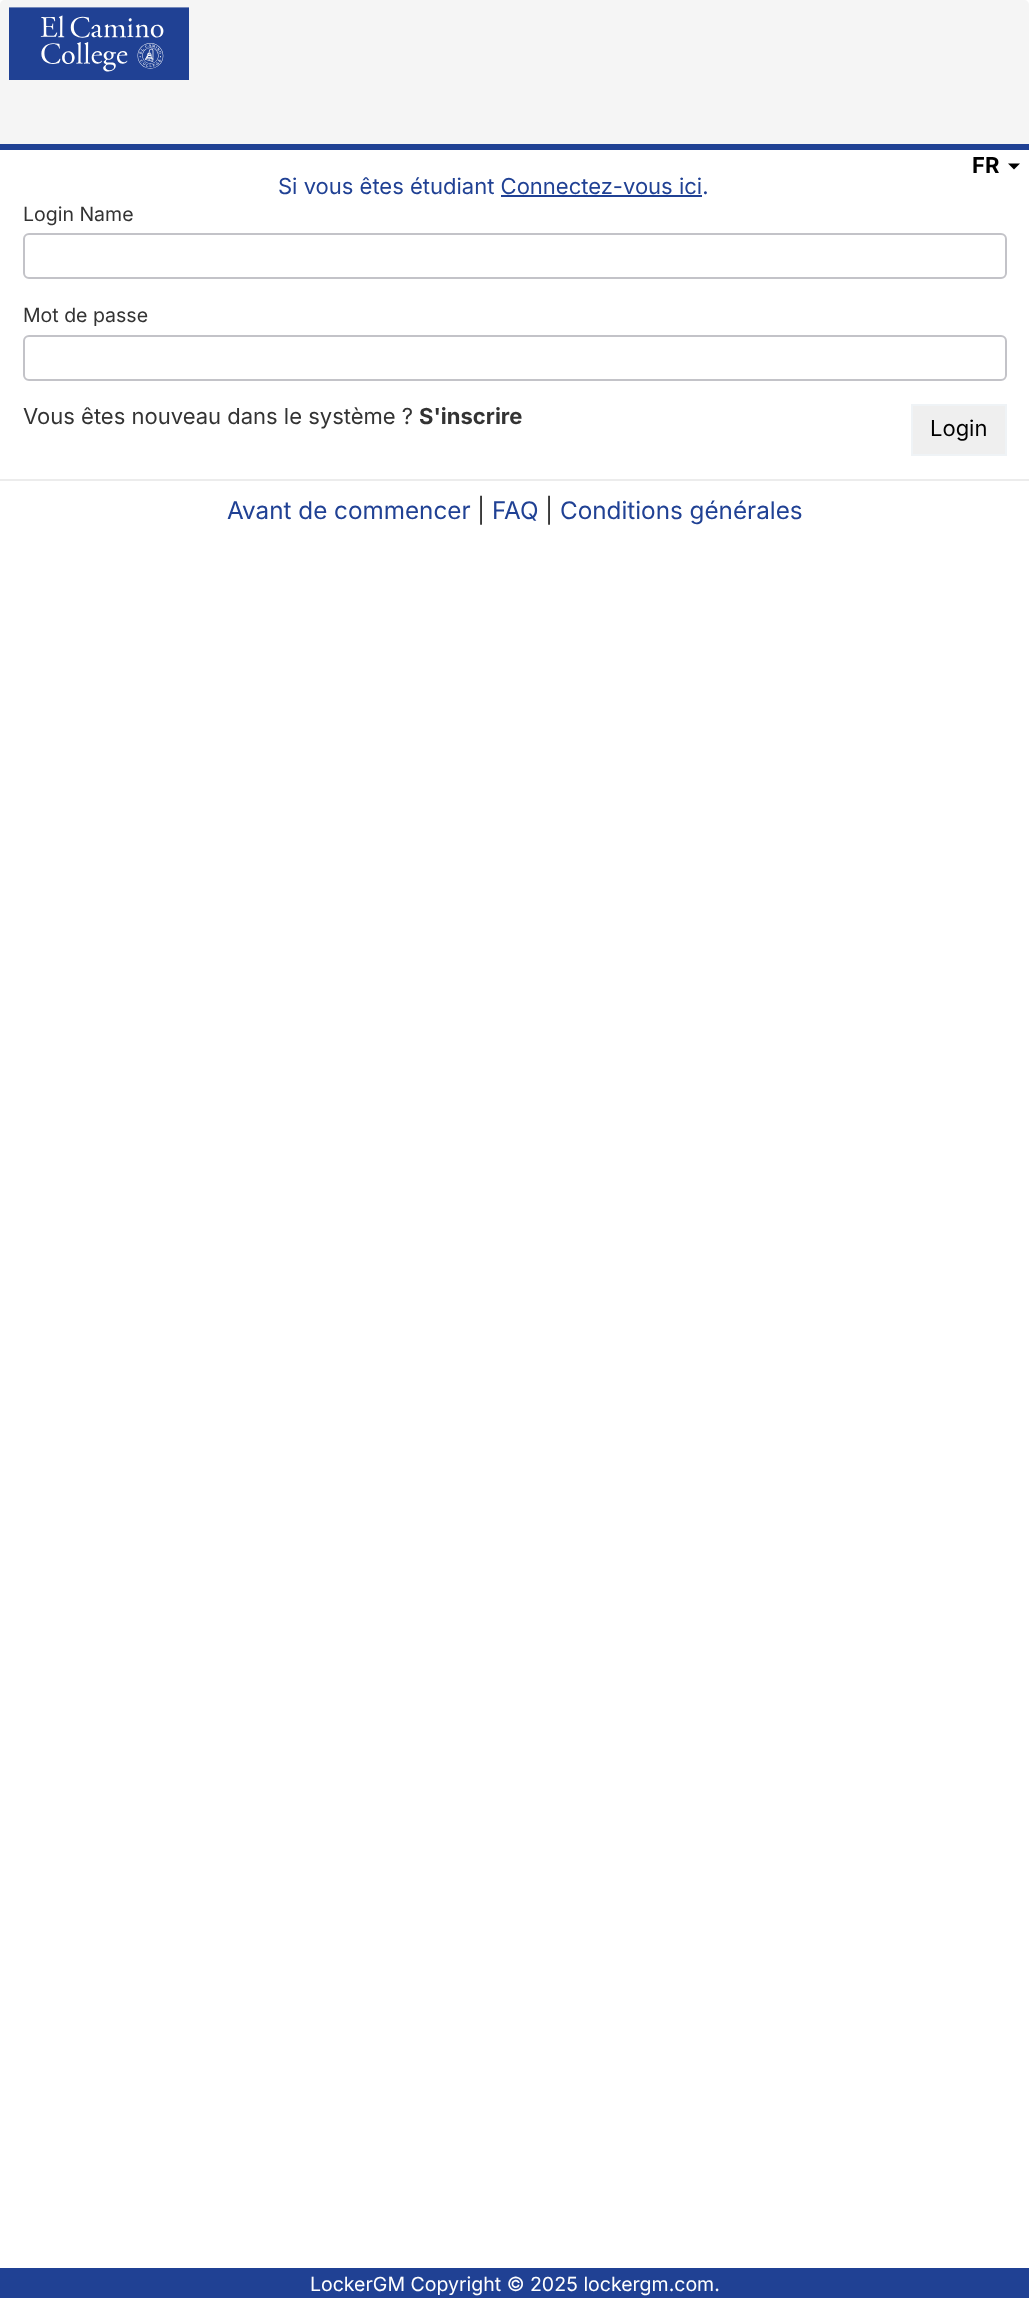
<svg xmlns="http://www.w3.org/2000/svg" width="1029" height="2318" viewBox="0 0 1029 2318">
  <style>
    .t1 { font: bold 22px Inter; fill: #000; }
    .t2 { font: 22px Inter; fill: #204194; }
    .t3 { font: 19.5px Inter; fill: #333; }
    .t4 { font: 22px Inter; fill: #333; }
    .t5 { font: bold 22px Inter; fill: #333; }
    .t6 { font: 22px Inter; fill: #000; }
    .t7 { font: 24.25px Inter; fill: #204194; }
    .t8 { font: 24.25px Inter; fill: #333; }
    .t9 { font: 19.5px Inter; fill: #fff; }
  </style>
  <rect width="100%" height="100%" fill="#fff"/>
  <rect x="0" y="479" width="1029" height="2" fill="#ececec"/>
  <path d="M5 0H1024C1027 0 1029 2 1029 5V150H0V5C0 2 2 0 5 0Z" fill="#f5f5f5"/>
  <rect x="0" y="144" width="1029" height="6" fill="#204194"/>
  <image x="9" y="7" width="180" height="73" href="images/1.png"/>
  <text x="972" y="173" class="t1">FR</text>
  <path d="M1008 163.5H1020L1014 169.5Z" fill="#000"/>
  <text x="278" y="194" class="t2">Si vous êtes étudiant Connectez-vous ici.</text>
  <rect x="501" y="195" width="201" height="2" fill="#204194"/>
  <text x="23" y="221" class="t3">Login Name</text>
  <rect x="24" y="234" width="982" height="44" rx="5" fill="none" stroke="#c3c3c8" stroke-width="2"/>
  <text x="23" y="322" class="t3">Mot de passe</text>
  <rect x="24" y="336" width="982" height="44" rx="5" fill="none" stroke="#c3c3c8" stroke-width="2"/>
  <text x="23" y="424" class="t4">Vous êtes nouveau dans le système ?</text>
  <text x="419" y="424" class="t5">S'inscrire</text>
  <rect x="912" y="405" width="94" height="50" fill="#efefef" stroke="#eff3f6" stroke-width="2"/>
  <text x="930" y="436" class="t6">Login</text>
  <text x="227" y="519" class="t7">Avant de commencer</text>
  <text x="477" y="519" class="t8">|</text>
  <text x="492" y="519" class="t7">FAQ</text>
  <text x="545" y="519" class="t8">|</text>
  <text x="560" y="519" class="t7">Conditions générales</text>
  <rect x="0" y="2268" width="1029" height="30" fill="#204194"/>
  <text x="310" y="2291" class="t9">LockerGM Copyright © 2025 lockergm.com.</text>
</svg>
